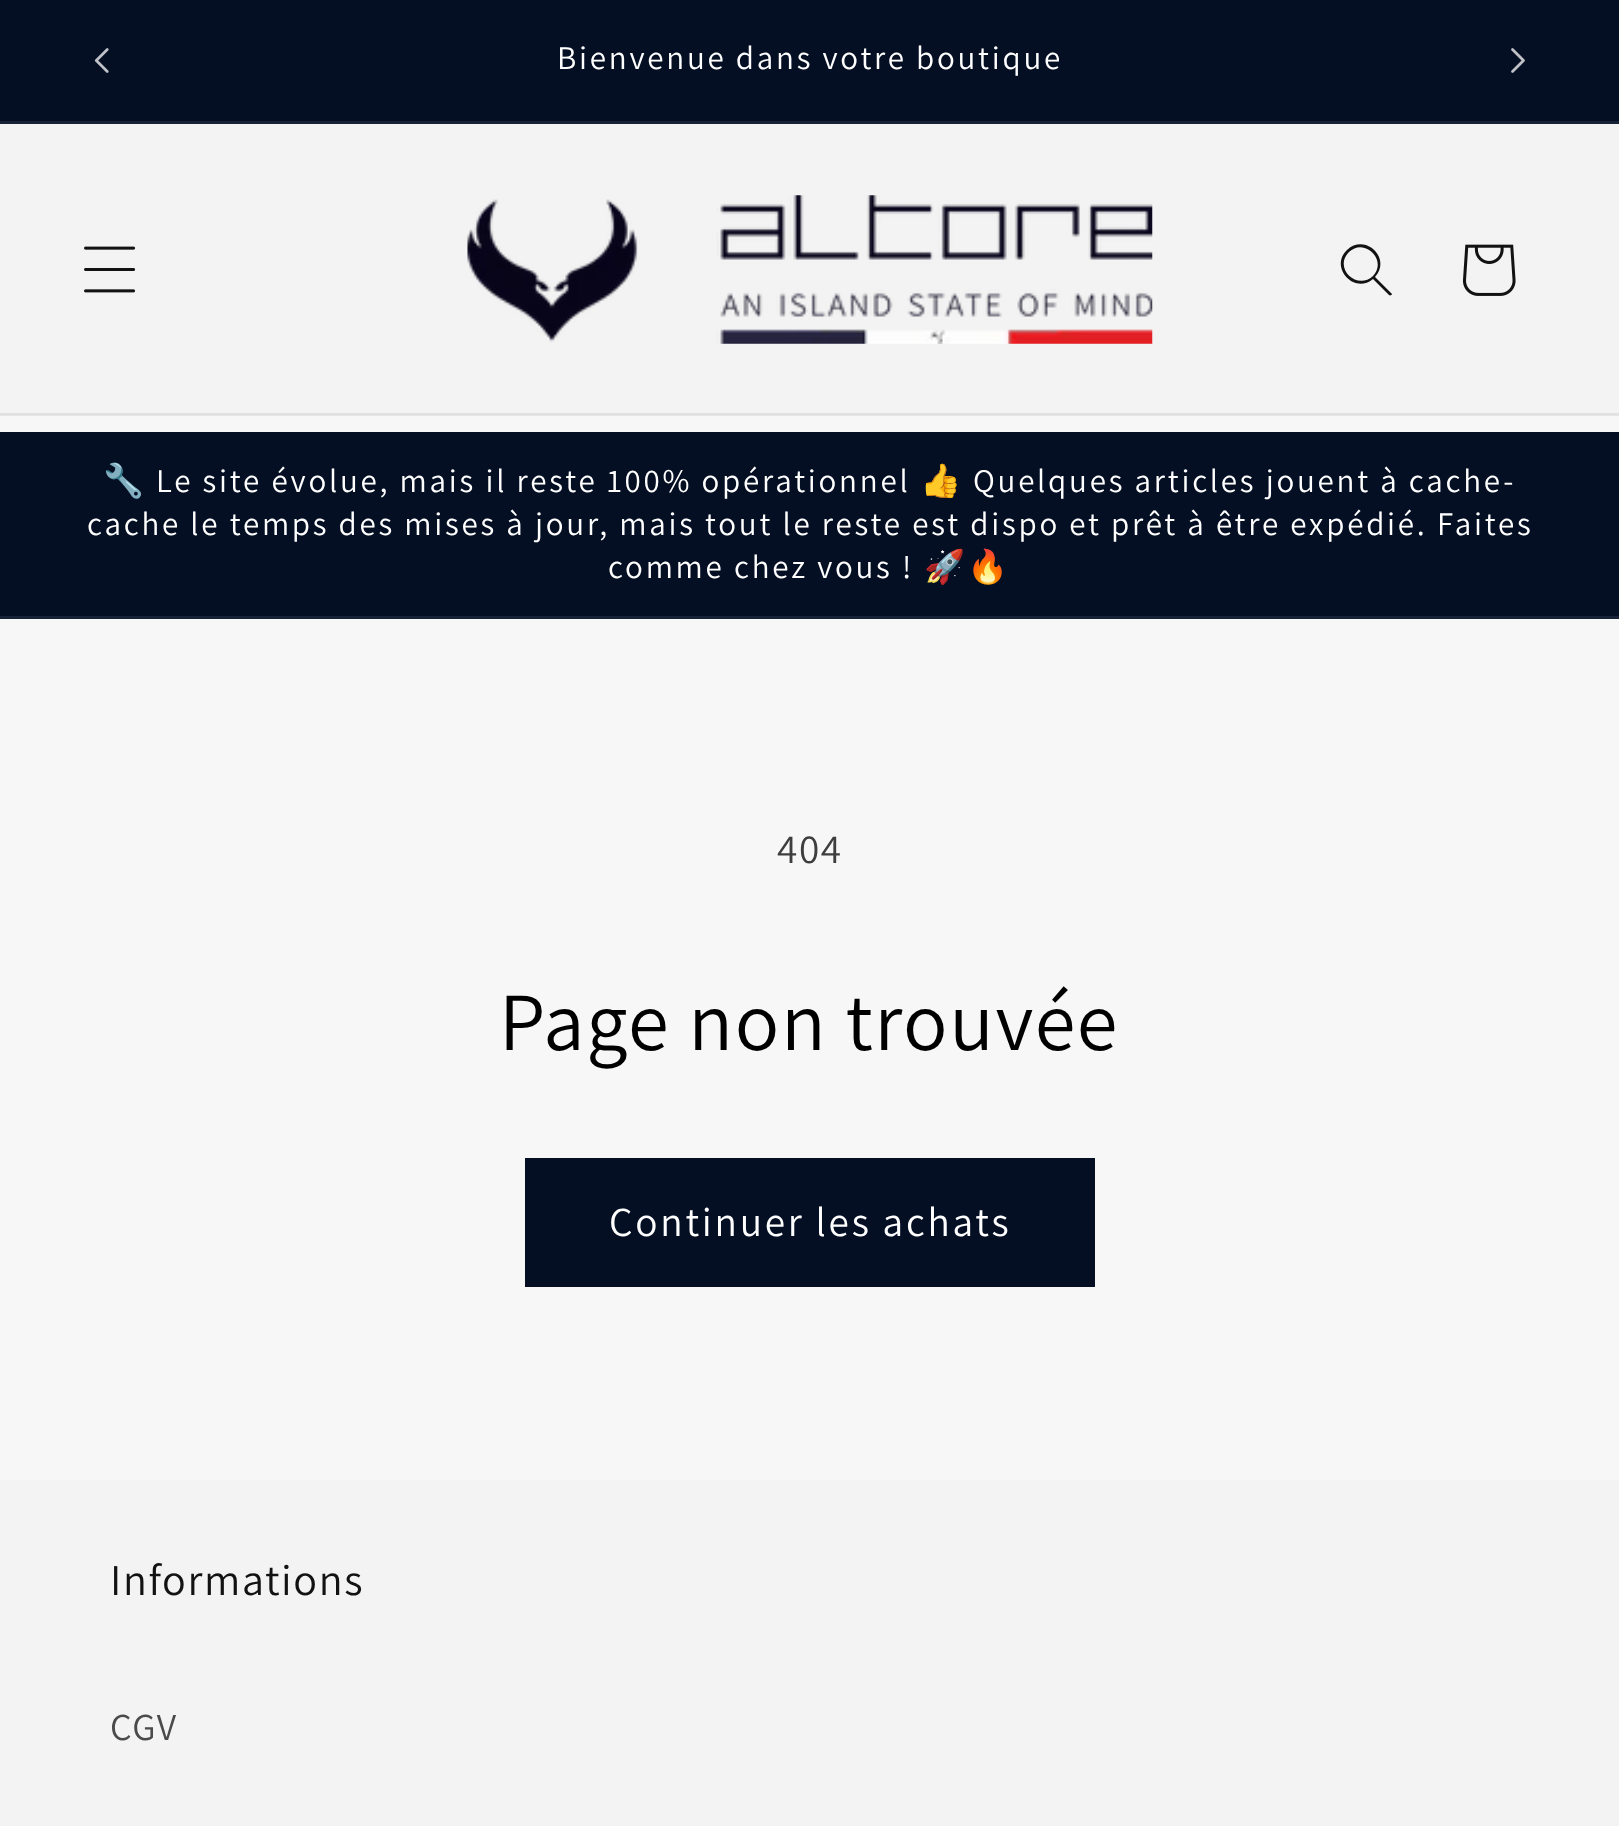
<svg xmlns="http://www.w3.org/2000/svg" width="1619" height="1826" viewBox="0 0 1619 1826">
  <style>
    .t1 { font: 33px Assistant; letter-spacing: 2.75px; fill: #fff; }
    .t2 { font: 33px Noto Color Emoji; letter-spacing: 2.75px; fill: #fff; }
    .t3 { font: 41.25px Assistant; letter-spacing: 1.6px; fill: #3e3e3e; }
    .t4 { font: 82.5px Assistant; letter-spacing: 1.6px; fill: #000; }
    .t5 { font: 41.25px Assistant; letter-spacing: 2.75px; fill: #fff; }
    .t6 { font: 44px Assistant; letter-spacing: 1.6px; fill: #121212; }
    .t7 { font: 38px Assistant; letter-spacing: 1.6px; fill: #4a4a4a; }
  </style>
  <defs>
    <linearGradient id="g1" gradientUnits="userSpaceOnUse" x1="422" y1="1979" x2="1198" y2="-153"><stop offset="0" stop-color="#091525"/><stop offset="0.06" stop-color="#f7f7f7"/></linearGradient>
    <linearGradient id="g2" gradientUnits="userSpaceOnUse" x1="422" y1="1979" x2="1198" y2="-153"><stop offset="0" stop-color="#0a1523"/><stop offset="0.06" stop-color="#e5e5e5"/></linearGradient>
  </defs>
  <rect width="100%" height="100%" fill="#fff"/>
  <rect x="0" y="416" width="1619" height="1064" fill="url(#g1)"/>
  <rect x="0" y="415" width="1619" height="1" fill="url(#g2)"/>
  <rect x="0" y="0" width="1619" height="121" fill="#040f24"/>
  <rect x="0" y="121" width="1619" height="3" fill="#182236"/>
  <image x="94" y="48" width="15" height="25" href="images/1.png"/>
  <text x="557" y="69" class="t1">Bienvenue dans votre boutique</text>
  <image x="1511" y="48" width="14" height="25" href="images/2.png"/>
  <rect x="0" y="124" width="1619" height="289" fill="#f3f3f3"/>
  <rect x="0" y="413" width="1619" height="2" fill="#e1e1e1"/>
  <image x="84" y="246" width="52" height="47" href="images/3.png"/>
  <image x="467" y="195" width="686" height="149" href="images/4.png"/>
  <path d="M1373 276C1357 291 1333 268 1349 252C1364 237 1388 260 1373 276M1373 279C1354 295 1329 267 1347 250C1365 233 1392 258 1375 277L1392 294C1392 295 1390 296 1389 295Z" fill="#121212" fill-rule="evenodd"/>
  <image x="1463" y="244" width="53" height="52" href="images/5.png"/>
  <rect x="0" y="432" width="1619" height="184" fill="#040f24"/>
  <rect x="0" y="616" width="1619" height="3" fill="#182236"/>
  <text x="103" y="492" class="t2">🔧</text>
  <text x="156" y="492" class="t1">Le site évolue, mais il reste 100% opérationnel</text>
  <text x="920" y="492" class="t2">👍</text>
  <text x="973" y="492" class="t1">Quelques articles jouent à cache-</text>
  <text x="87" y="535" class="t1">cache le temps des mises à jour, mais tout le reste est dispo et prêt à être expédié. Faites</text>
  <text x="608" y="578" class="t1">comme chez vous !</text>
  <text x="924" y="578" class="t2">🚀🔥</text>
  <text x="777" y="863" class="t3">404</text>
  <text x="499" y="1050" class="t4">Page non trouvée</text>
  <rect x="525" y="1158" width="570" height="129" fill="#040f24"/>
  <text x="609" y="1236" class="t5">Continuer les achats</text>
  <rect x="0" y="1480" width="1619" height="346" fill="#f3f3f3"/>
  <text x="110" y="1595" class="t6">Informations</text>
  <text x="110" y="1740" class="t7">CGV</text>
</svg>
